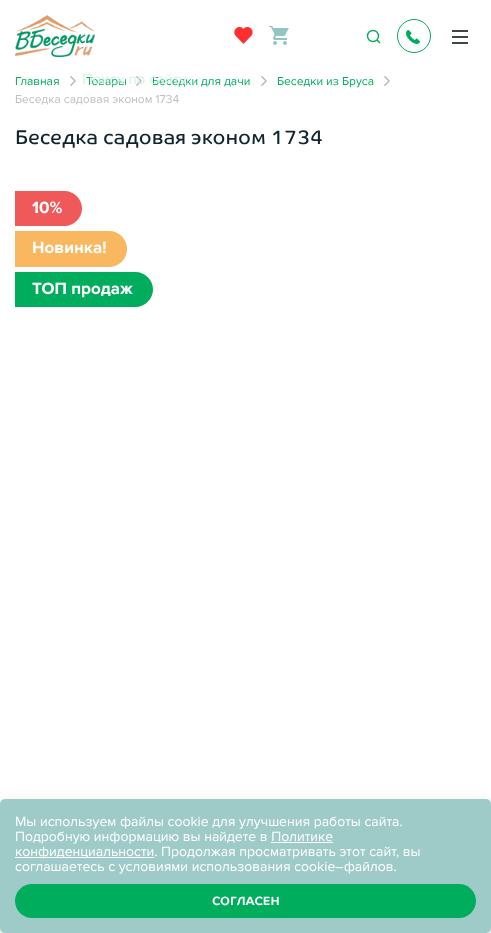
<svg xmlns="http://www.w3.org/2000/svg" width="491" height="933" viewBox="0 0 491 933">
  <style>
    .t1 { font: 12px Proxima Nova; fill: #00ad5d; }
    .t2 { font: 15px Proxima Nova; fill: #d6f1e5; }
    .t3 { font: 12px Proxima Nova; fill: #c0c0c0; }
    .t4 { font: 20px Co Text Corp; fill: #11232d; }
    .t5 { font: bold 17px Proxima Nova; fill: #fff; }
    .t6 { font: 14px Proxima Nova; fill: #fff; }
    .t7 { font: bold 12px Co Text Corp; fill: #fff; }
  </style>
  <defs>
    <clipPath id="clip1"><path d="M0 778H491V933H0ZM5 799H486C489 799 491 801 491 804V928C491 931 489 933 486 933H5C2 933 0 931 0 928V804C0 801 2 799 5 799Z" clip-rule="evenodd"/></clipPath>
  </defs>
  <rect width="100%" height="100%" fill="#fff"/>
  <image x="15" y="15" width="80" height="42" href="images/1.png"/>
  <rect x="452" y="30" width="16" height="2" fill="#3f4447"/>
  <rect x="452" y="36" width="16" height="2" fill="#3f4447"/>
  <rect x="452" y="42" width="16" height="2" fill="#3f4447"/>
  <image x="406" y="30" width="14" height="14" href="images/2.png"/>
  <circle cx="414" cy="36" r="16.5" fill="none" stroke="#00ad5d"/>
  <image x="234" y="27" width="19" height="17" href="images/3.png"/>
  <image x="269" y="26" width="20" height="19" href="images/4.png"/>
  <circle cx="373" cy="36" r="5.5" fill="none" stroke="#00ad5d" stroke-width="1.4"/>
  <path d="M380 43L377 40" fill="none" stroke="#00ad5d" stroke-width="1.4"/>
  <text x="86" y="85" class="t1">Товары</text>
  <image x="136" y="76" width="6" height="10" href="images/5.png"/>
  <text x="152" y="85" class="t1">Беседки для дачи</text>
  <text x="82" y="84" class="t2">Поиск по сайту…</text>
  <text x="15" y="85" class="t1">Главная</text>
  <image x="70" y="76" width="6" height="10" href="images/5.png"/>
  <image x="261" y="76" width="6" height="10" href="images/5.png"/>
  <text x="277" y="85" class="t1">Беседки из Бруса</text>
  <image x="384" y="76" width="6" height="10" href="images/5.png"/>
  <text x="15" y="103" class="t3">Беседка садовая эконом 1734</text>
  <text x="15" y="144" class="t4">Беседка садовая эконом 1734</text>
  <path d="M15 191H64.5C74 191 82 199 82 208.5C82 218 74 226 64.5 226H15Z" fill="#f05959"/>
  <text x="32" y="213" class="t5">10%</text>
  <path d="M15 231H109C119 231 127 239 127 249C127 259 119 267 109 267H15Z" fill="#f9b75f"/>
  <text x="32" y="253" class="t5">Новинка!</text>
  <path d="M15 272H135.5C145 272 153 280 153 289.5C153 299 145 307 135.5 307H15Z" fill="#00ad5d"/>
  <text x="32" y="294" class="t5">ТОП продаж</text>
  <g clip-path="url(#clip1)">
    <rect x="0" y="809" width="491" height="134" rx="5" fill="#00000033" filter="blur(10px)"/>
  </g>
  <rect x="0" y="799" width="491" height="134" rx="5" fill="#93c5c2e6"/>
  <text x="15" y="826" class="t6">Мы используем файлы cookie для улучшения работы сайта.</text>
  <text x="15" y="841" class="t6">Подробную информацию вы найдете в Политике</text>
  <rect x="271" y="842" width="62" height="1" fill="#fff"/>
  <rect x="15" y="857" width="139" height="1" fill="#fff"/>
  <text x="15" y="856" class="t6">конфиденциальности. Продолжая просматривать этот сайт, вы</text>
  <text x="15" y="871" class="t6">соглашаетесь с условиями использования cookie–файлов.</text>
  <rect x="15" y="884" width="461" height="34" rx="17" fill="#00ad5d"/>
  <text x="212" y="905" class="t7">СОГЛАСЕН</text>
</svg>
